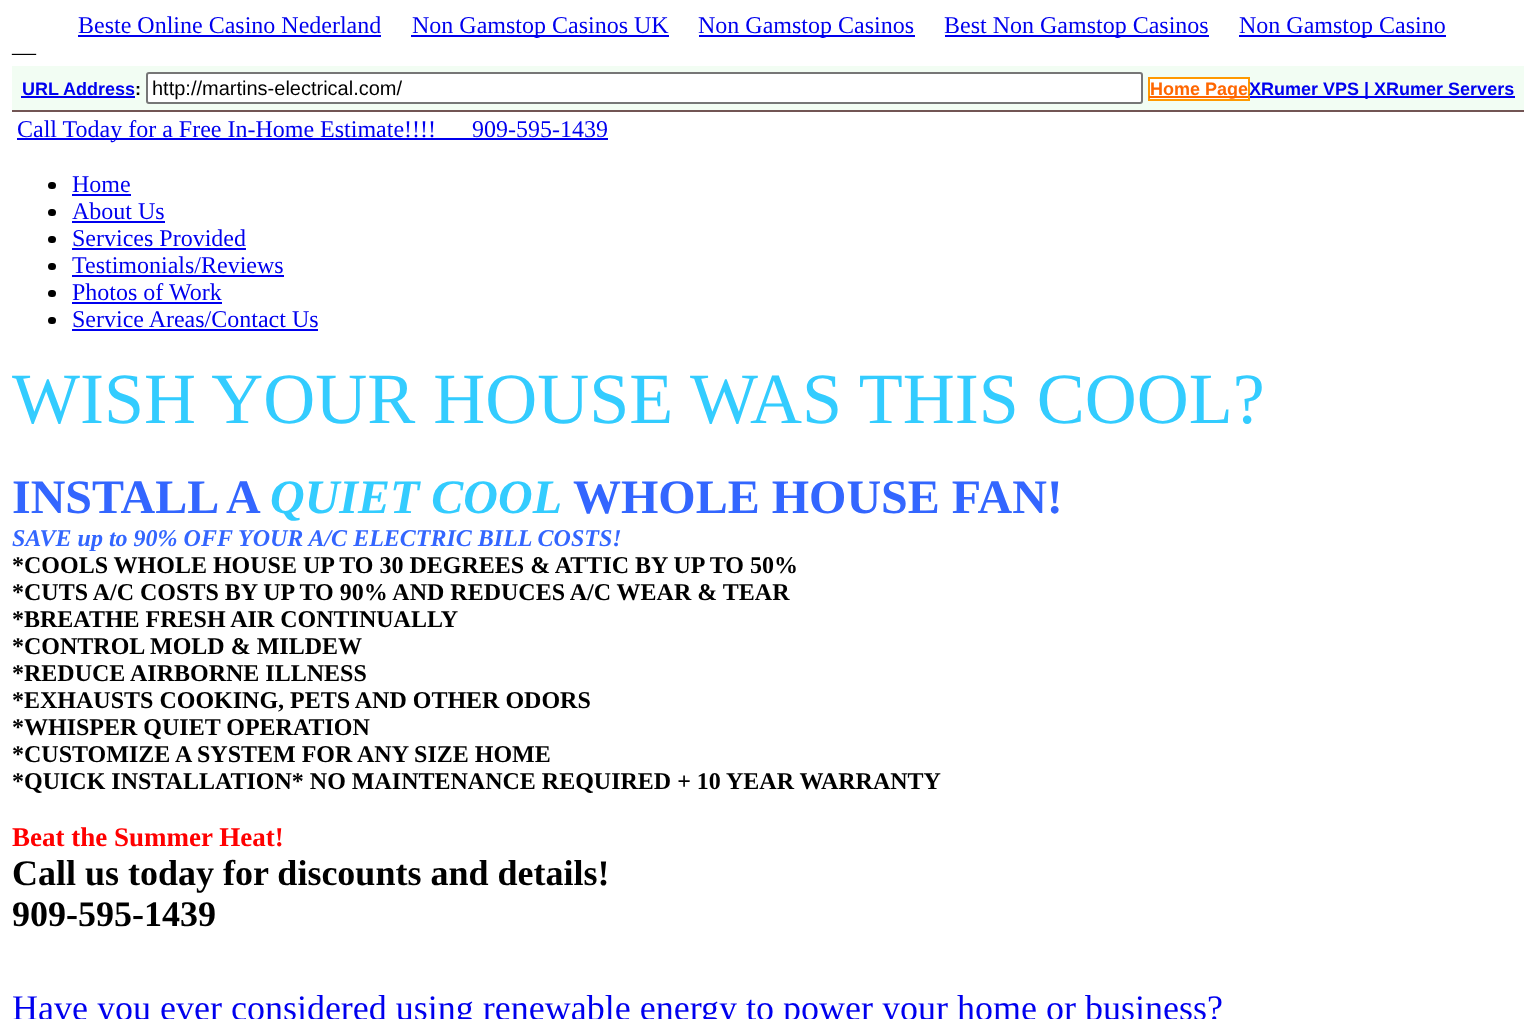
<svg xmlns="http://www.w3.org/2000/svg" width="1524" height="1019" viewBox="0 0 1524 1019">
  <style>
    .t1 { font: 24px Liberation Serif; fill: #00e; }
    .t2 { font: 24px Liberation Serif; fill: #000; }
    .t3 { font: bold 18px Liberation Sans; fill: #00e; }
    .t4 { font: bold 18px Liberation Sans; fill: #000; }
    .t5 { font: 20px Liberation Sans; fill: #000; }
    .t6 { font: bold 18px Liberation Sans; fill: #f60; }
    .t7 { font: 72px Liberation Serif; fill: #3cf; }
    .t8 { font: bold 48px Liberation Serif; fill: #36f; }
    .t9 { font: italic bold 48px Liberation Serif; fill: #3cf; }
    .t10 { font: italic bold 24px Liberation Serif; fill: #36f; }
    .t11 { font: bold 24px Liberation Serif; fill: #000; }
    .t12 { font: bold 27px Liberation Serif; fill: #f00; }
    .t13 { font: bold 36px Liberation Serif; fill: #000; }
    .t14 { font: 36px Liberation Serif; fill: #00e; }
  </style>
  <rect width="100%" height="100%" fill="#fff"/>
  <text x="78" y="33" class="t1">Beste Online Casino Nederland</text>
  <rect x="78" y="35" width="303" height="2" fill="#00e"/>
  <rect x="411" y="35" width="258" height="2" fill="#00e"/>
  <text x="412" y="33" class="t1">Non Gamstop Casinos UK</text>
  <rect x="699" y="35" width="216" height="2" fill="#00e"/>
  <text x="698" y="33" class="t1">Non Gamstop Casinos</text>
  <rect x="945" y="35" width="264" height="2" fill="#00e"/>
  <text x="944" y="33" class="t1">Best Non Gamstop Casinos</text>
  <rect x="1239" y="35" width="207" height="2" fill="#00e"/>
  <text x="1239" y="33" class="t1">Non Gamstop Casino</text>
  <text x="12" y="60" class="t2">—</text>
  <rect x="12" y="66" width="1512" height="44" fill="#f2fdf3"/>
  <rect x="12" y="110" width="1512" height="2" fill="#725554"/>
  <text x="22" y="95" class="t3">URL Address</text>
  <text x="135" y="95" class="t4">:</text>
  <rect x="21" y="96" width="114" height="2" fill="#00e"/>
  <rect x="147" y="73" width="995" height="30" rx="2" fill="#fff" stroke="#767676" stroke-width="2"/>
  <text x="152" y="95" class="t5">http://martins-electrical.com/</text>
  <rect x="1149" y="78" width="100" height="22" fill="#fff" stroke="#f90" stroke-width="2"/>
  <rect x="1149" y="96" width="99" height="2" fill="#f60"/>
  <text x="1150" y="95" class="t6">Home Page</text>
  <rect x="1250" y="96" width="265" height="2" fill="#00e"/>
  <text x="1249" y="95" class="t3">XRumer VPS | XRumer Servers</text>
  <rect x="17" y="138" width="591" height="2" fill="#00e"/>
  <text x="17" y="137" class="t1" xml:space="preserve">Call Today for a Free In-Home Estimate!!!!      909-595-1439</text>
  <rect x="48" y="182" width="8" height="7" rx="3.5" fill="#000"/>
  <text x="72" y="192" class="t1">Home</text>
  <rect x="72" y="194" width="59" height="2" fill="#00e"/>
  <rect x="48" y="209" width="8" height="7" rx="3.5" fill="#000"/>
  <text x="72" y="219" class="t1">About Us</text>
  <rect x="72" y="221" width="93" height="2" fill="#00e"/>
  <rect x="48" y="236" width="8" height="7" rx="3.5" fill="#000"/>
  <text x="72" y="246" class="t1">Services Provided</text>
  <rect x="72" y="248" width="174" height="2" fill="#00e"/>
  <rect x="48" y="263" width="8" height="7" rx="3.5" fill="#000"/>
  <text x="72" y="273" class="t1">Testimonials/Reviews</text>
  <rect x="72" y="275" width="212" height="2" fill="#00e"/>
  <rect x="48" y="290" width="8" height="7" rx="3.5" fill="#000"/>
  <text x="72" y="300" class="t1">Photos of Work</text>
  <rect x="72" y="302" width="150" height="2" fill="#00e"/>
  <rect x="48" y="317" width="8" height="7" rx="3.5" fill="#000"/>
  <text x="72" y="327" class="t1">Service Areas/Contact Us</text>
  <rect x="72" y="329" width="246" height="2" fill="#00e"/>
  <text x="12" y="423" class="t7">WISH YOUR HOUSE WAS THIS COOL?</text>
  <text x="12" y="513" class="t8">INSTALL A</text>
  <text x="270" y="513" class="t9">QUIET COOL</text>
  <text x="573" y="513" class="t8">WHOLE HOUSE FAN!</text>
  <text x="12" y="546" class="t10">SAVE up to 90% OFF</text>
  <text x="238" y="546" class="t10">YOUR A/C ELECTRIC BILL COSTS!</text>
  <text x="12" y="573" class="t11">*COOLS WHOLE HOUSE UP TO 30 DEGREES &amp; ATTIC BY UP TO 50%</text>
  <text x="12" y="600" class="t11">*CUTS A/C COSTS BY UP TO 90% AND REDUCES A/C WEAR &amp; TEAR</text>
  <text x="12" y="627" class="t11">*BREATHE FRESH AIR CONTINUALLY</text>
  <text x="12" y="654" class="t11">*CONTROL MOLD &amp; MILDEW</text>
  <text x="12" y="681" class="t11">*REDUCE AIRBORNE ILLNESS</text>
  <text x="12" y="708" class="t11">*EXHAUSTS COOKING, PETS AND OTHER ODORS</text>
  <text x="12" y="735" class="t11">*WHISPER QUIET OPERATION</text>
  <text x="12" y="762" class="t11">*CUSTOMIZE A SYSTEM FOR ANY SIZE HOME</text>
  <text x="12" y="789" class="t11">*QUICK INSTALLATION* NO MAINTENANCE REQUIRED + 10 YEAR WARRANTY</text>
  <text x="12" y="846" class="t12">Beat the Summer Heat!</text>
  <text x="12" y="885" class="t13">Call us today for discounts and details!</text>
  <text x="12" y="926" class="t13">909-595-1439</text>
  <text x="12" y="1020" class="t14">Have you ever considered using renewable energy to power your home or business?</text>
</svg>
